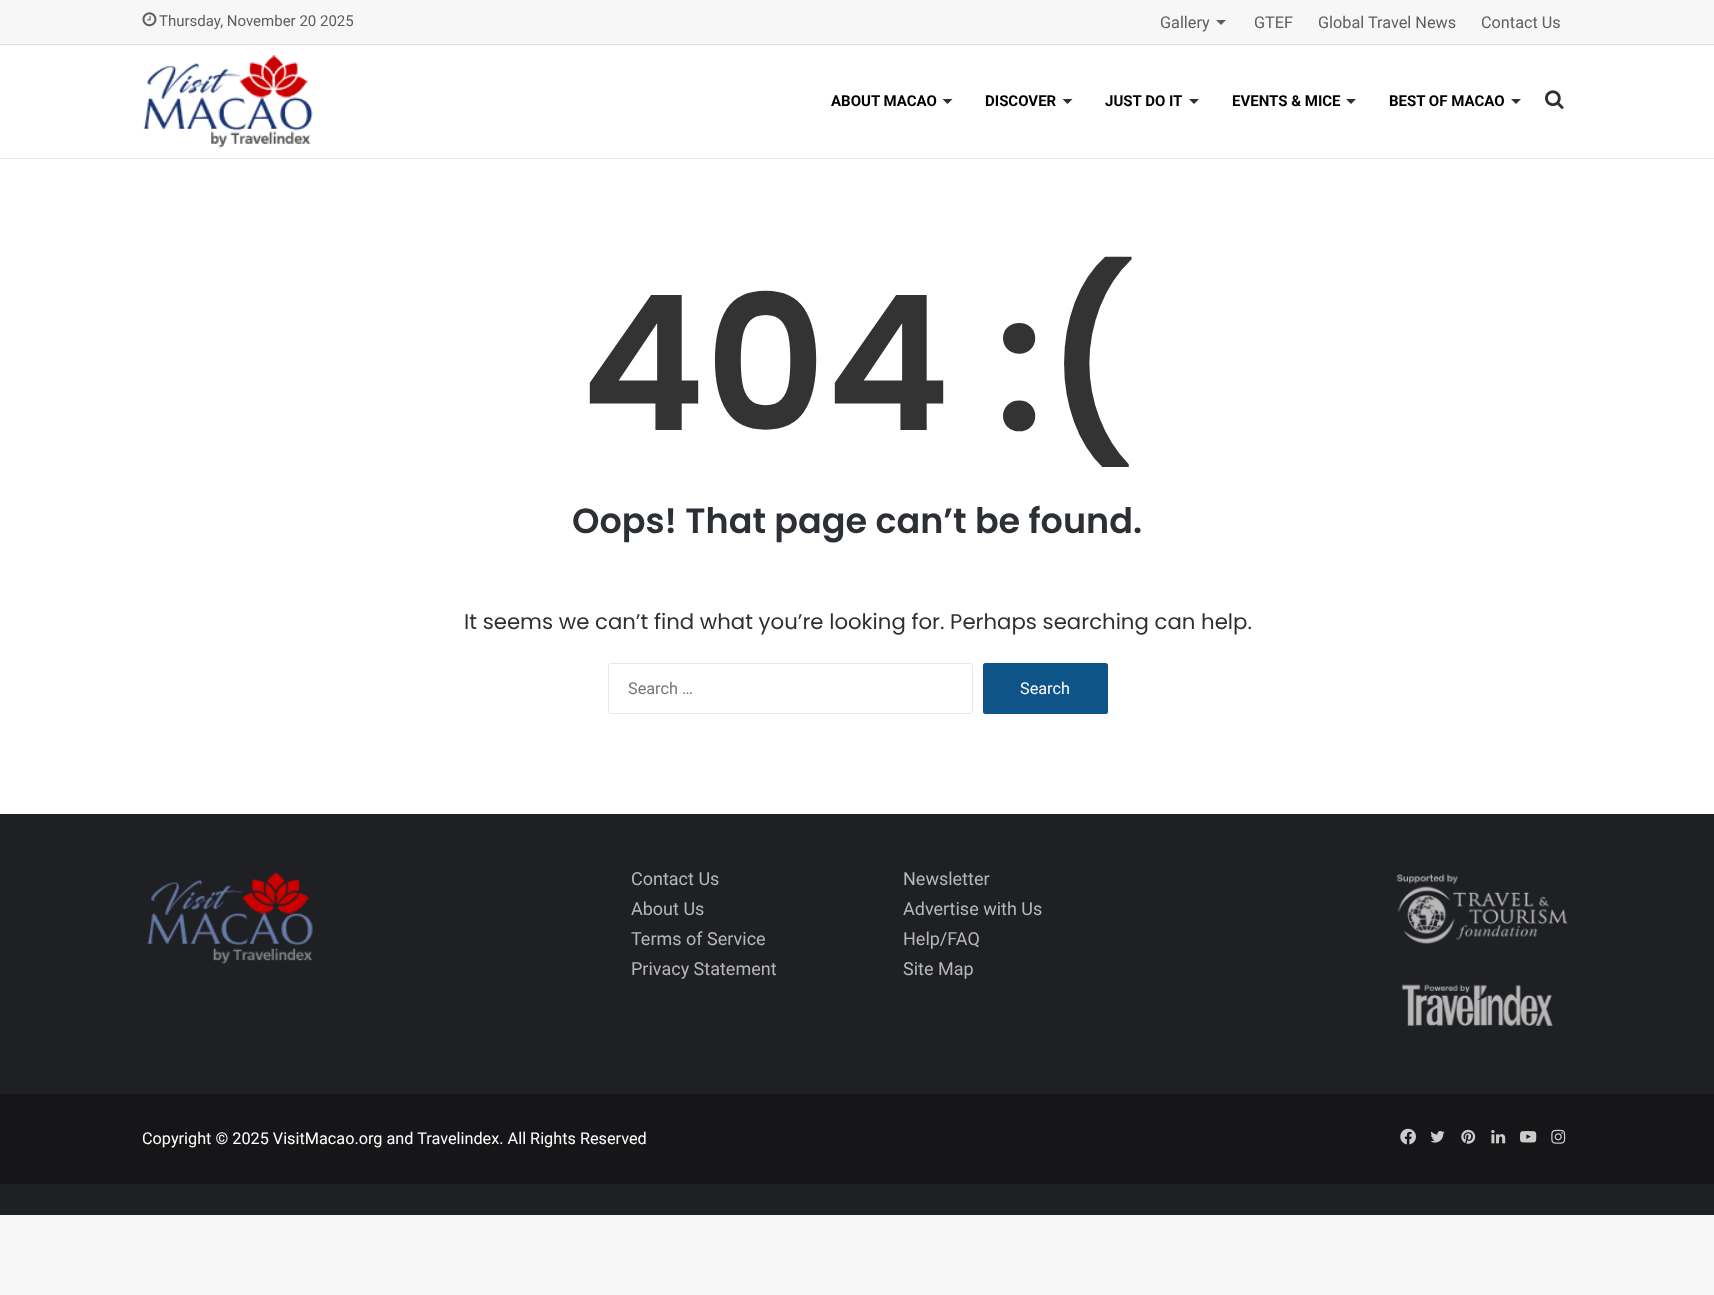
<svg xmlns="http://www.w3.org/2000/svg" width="1714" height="1295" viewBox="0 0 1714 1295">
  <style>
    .t1 { font: 15px Roboto; fill: #5e5e5e; }
    .t2 { font: 16.25px Roboto; fill: #5e5e5e; }
    .t3 { font: bold 15px Roboto; fill: #000; }
    .t4 { font: 600 187.5px Poppins; fill: #333; }
    .t5 { font: 600 35px Poppins; fill: #2c2f34; }
    .t6 { font: 21.25px Poppins; fill: #2c2f34; }
    .t7 { font: 16.25px Roboto; fill: #757575; }
    .t8 { font: 16.25px Roboto; fill: #fff; }
    .t9 { font: 18px Roboto; fill: #b7b7b7; }
  </style>
  <rect width="100%" height="100%" fill="#f7f7f7"/>
  <rect x="0" y="45" width="1714" height="769" fill="#fff"/>
  <rect x="0" y="44" width="1714" height="1" fill="#ddd"/>
  <image x="142" y="12" width="15" height="15" href="images/1.png"/>
  <text x="159" y="26" class="t1">Thursday, November 20 2025</text>
  <text x="1160" y="28" class="t2">Gallery</text>
  <path d="M1216 20H1226L1221 25Z" fill="#5e5e5e"/>
  <text x="1254" y="28" class="t2">GTEF</text>
  <text x="1318" y="28" class="t2">Global Travel News</text>
  <text x="1481" y="28" class="t2">Contact Us</text>
  <rect x="0" y="158" width="1714" height="1" fill="#e6e6e6"/>
  <image x="143" y="54" width="170" height="94" href="images/2.png"/>
  <text x="831" y="106" class="t3">ABOUT MACAO</text>
  <path d="M942.5 99H952.5L947.5 104Z" fill="#2c2f34"/>
  <text x="985" y="106" class="t3">DISCOVER</text>
  <path d="M1062.5 99H1072.5L1067.5 104Z" fill="#2c2f34"/>
  <text x="1105" y="106" class="t3">JUST DO IT</text>
  <path d="M1189 99H1199L1194 104Z" fill="#2c2f34"/>
  <text x="1232" y="106" class="t3">EVENTS &amp; MICE</text>
  <path d="M1346 99H1356L1351 104Z" fill="#2c2f34"/>
  <text x="1389" y="106" class="t3">BEST OF MACAO</text>
  <path d="M1511 99H1521L1516 104Z" fill="#2c2f34"/>
  <image x="1545" y="90" width="19" height="19" href="images/3.png"/>
  <text x="581" y="430" class="t4">404 :(</text>
  <text x="572" y="533" class="t5">Oops! That page can’t be found.</text>
  <text x="464" y="629" class="t6">It seems we can’t find what you’re looking for. Perhaps searching can help.</text>
  <rect x="608.5" y="663.5" width="364" height="50" rx="2" fill="none" stroke="#e6e6e6"/>
  <text x="628" y="694" class="t7">Search …</text>
  <rect x="983" y="663" width="125" height="51" rx="2.5" fill="#0e5488"/>
  <text x="1020" y="694" class="t8">Search</text>
  <rect x="0" y="814" width="1714" height="401" fill="#1f2024"/>
  <image x="147" y="872" width="166" height="92" href="images/4.png"/>
  <text x="631" y="885" class="t9">Contact Us</text>
  <text x="631" y="915" class="t9">About Us</text>
  <text x="631" y="945" class="t9">Terms of Service</text>
  <text x="631" y="975" class="t9">Privacy Statement</text>
  <text x="903" y="885" class="t9">Newsletter</text>
  <text x="903" y="915" class="t9">Advertise with Us</text>
  <text x="903" y="945" class="t9">Help/FAQ</text>
  <text x="903" y="975" class="t9">Site Map</text>
  <image x="1396" y="874" width="172" height="70" href="images/5.png"/>
  <image x="1401" y="984" width="152" height="42" href="images/6.png"/>
  <rect x="0" y="1094" width="1714" height="90" fill="#161619"/>
  <text x="142" y="1144" class="t8">Copyright © 2025 VisitMacao.org and Travelindex. All Rights Reserved</text>
  <image x="1400" y="1128" width="16" height="17" href="images/7.png"/>
  <image x="1430" y="1131" width="15" height="12" href="images/8.png"/>
  <image x="1461" y="1129" width="15" height="15" href="images/9.png"/>
  <image x="1491" y="1130" width="15" height="14" href="images/10.png"/>
  <image x="1520" y="1131" width="17" height="12" href="images/11.png"/>
  <image x="1551" y="1129" width="15" height="15" href="images/12.png"/>
</svg>
